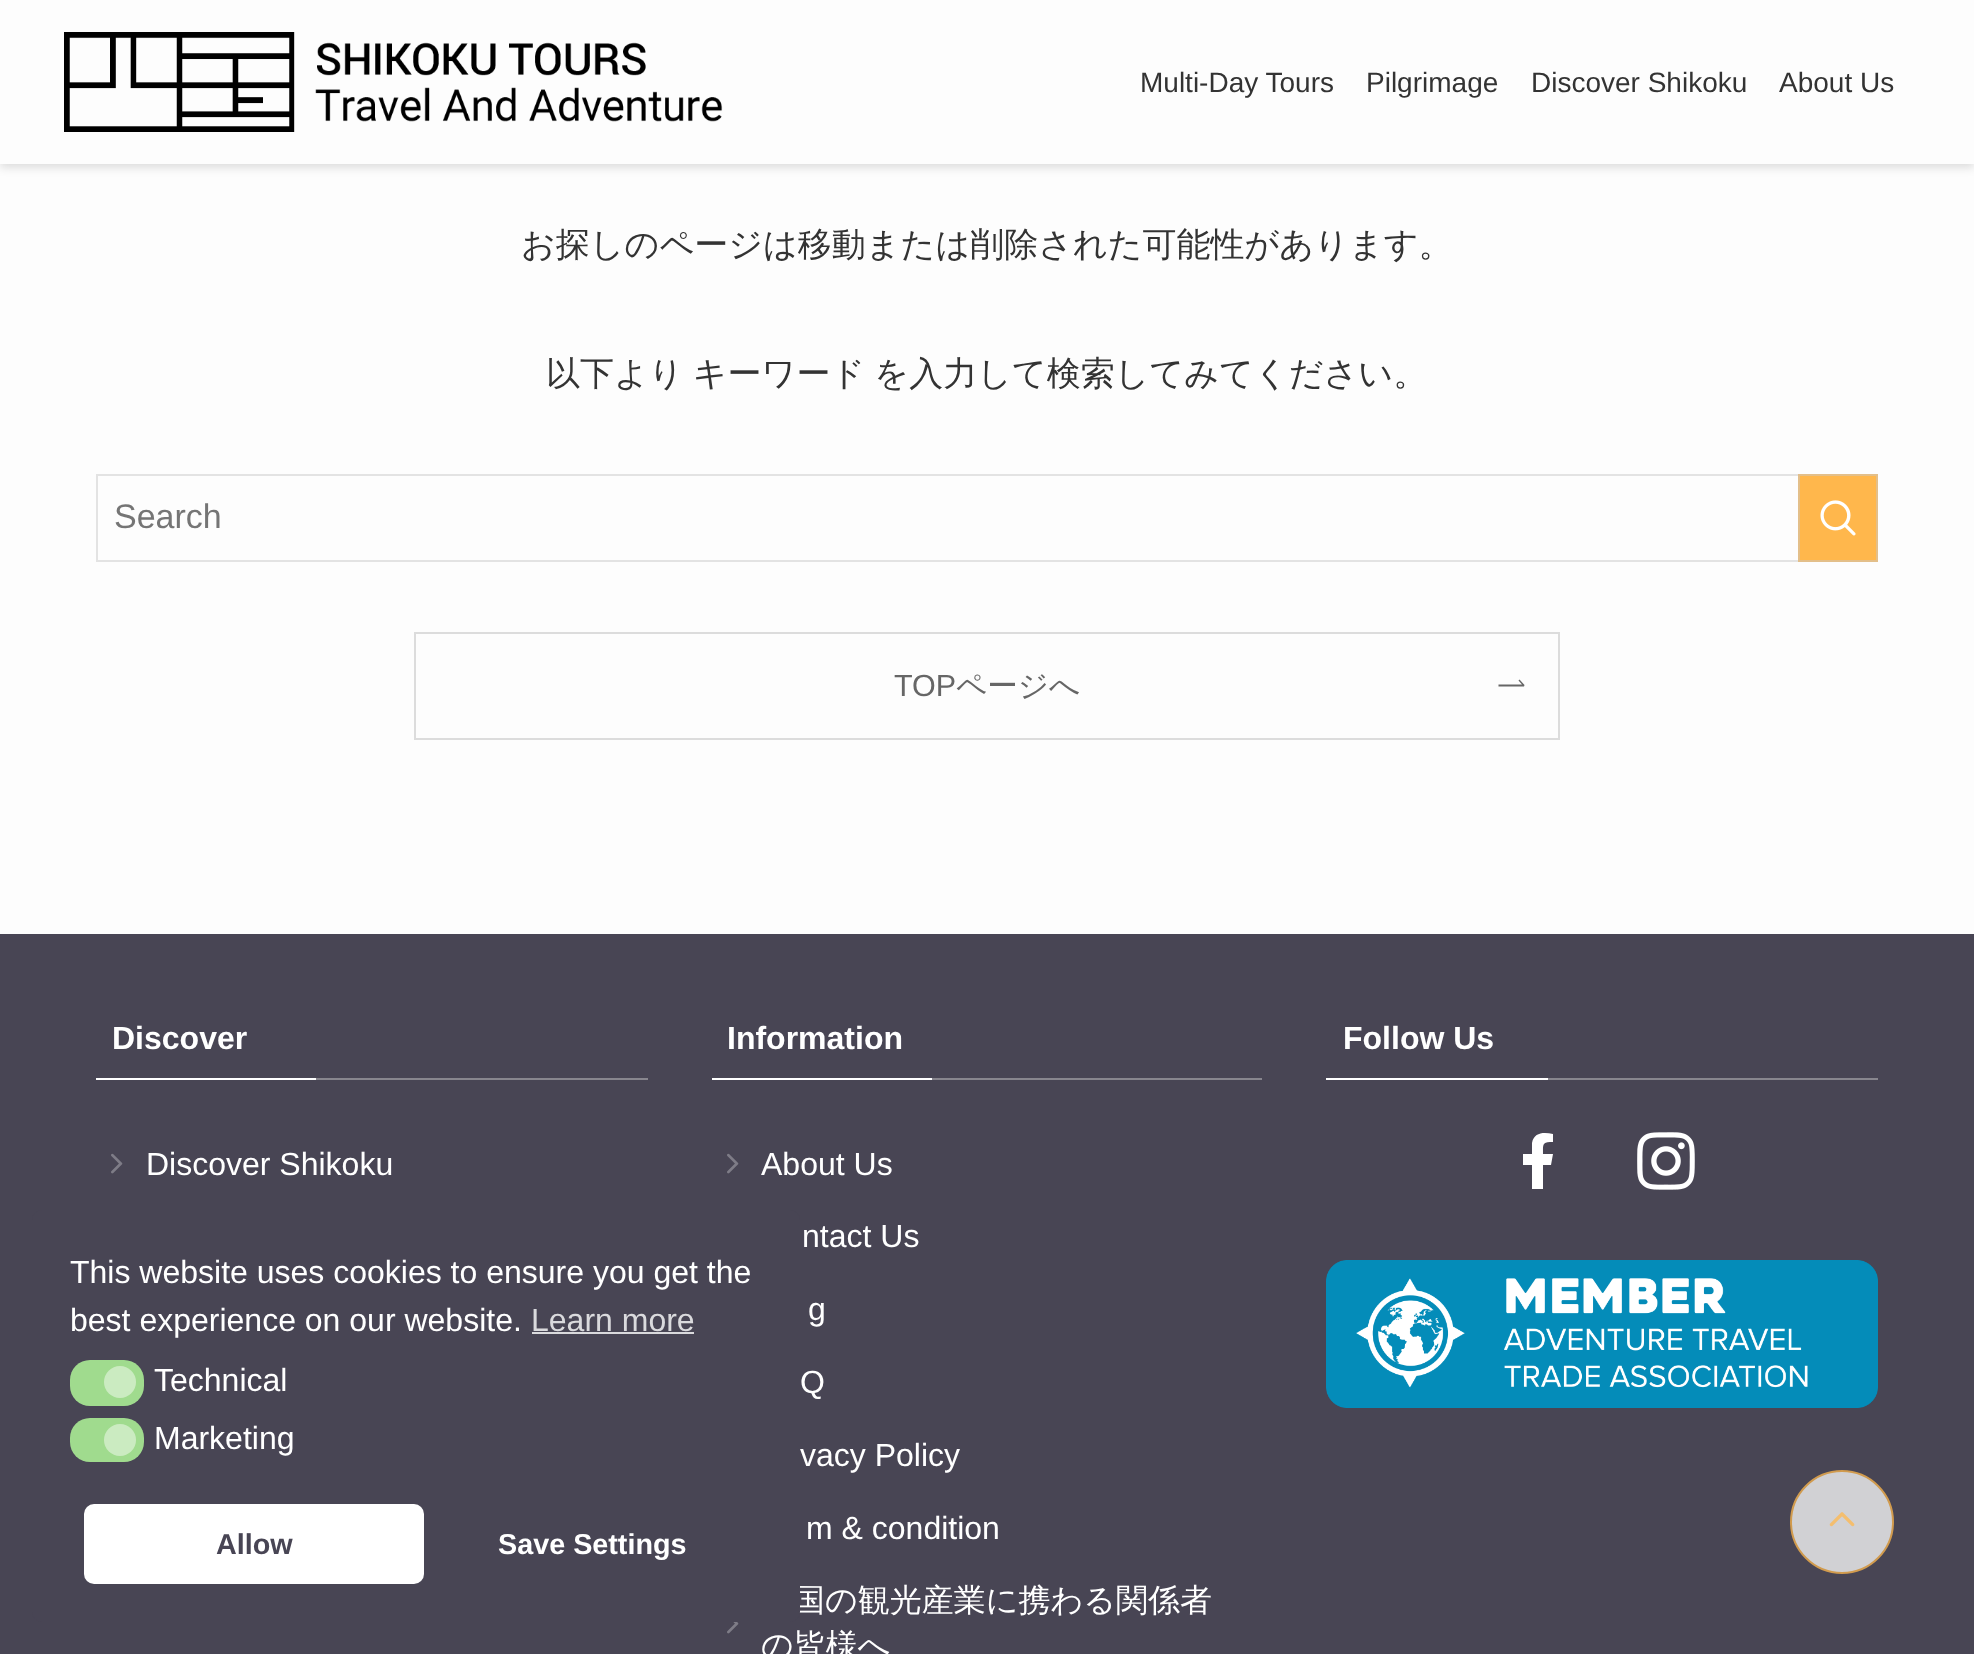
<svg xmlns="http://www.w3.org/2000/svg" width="1974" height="1654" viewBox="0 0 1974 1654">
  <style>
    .t1 { font: 28px Liberation Sans; fill: #333; }
    .t2 { font: 500 34px WenQuanYi Zen Hei; fill: #333; }
    .t3 { font: 34px Liberation Sans; fill: #757575; }
    .t4 { font: 30.5px Liberation Sans; fill: #666; }
    .t5 { font: 500 30.5px WenQuanYi Zen Hei; fill: #666; }
    .t6 { font: bold 32px Liberation Sans; fill: #fff; }
    .t7 { font: 32px Liberation Sans; fill: #fff; }
    .t8 { font: 500 32px WenQuanYi Zen Hei; fill: #fff; }
    .t9 { font: 32px Liberation Sans; fill: #dadadd; }
    .t10 { font: bold 28.75px Liberation Sans; fill: #484554; }
    .t11 { font: bold 28.75px Liberation Sans; fill: #fff; }
  </style>
  <rect width="100%" height="100%" fill="#fdfdfd"/>
  <rect x="0" y="4" width="1974" height="164" fill="#0000001f" filter="blur(4px)"/>
  <rect x="0" y="0" width="1974" height="164" fill="#fdfdfd"/>
  <image x="64" y="32" width="659" height="100" href="images/1.png"/>
  <text x="1140" y="92" class="t1">Multi-Day Tours</text>
  <text x="1366" y="92" class="t1">Pilgrimage</text>
  <text x="1531" y="92" class="t1">Discover Shikoku</text>
  <text x="1779" y="92" class="t1">About Us</text>
  <text x="521" y="256" class="t2">お探しのページは移動または削除された可能性があります。</text>
  <text x="546" y="385" word-spacing="-1" class="t2">以下より キーワード を入力して検索してみてください。</text>
  <rect x="97" y="475" width="1780" height="86" fill="none" stroke="#e3e3e3" stroke-width="2"/>
  <text x="114" y="528" class="t3">Search</text>
  <rect x="1799" y="475" width="78" height="86" fill="#ffb74c" stroke="#e3bf8a" stroke-width="2"/>
  <image x="1820" y="500" width="36" height="36" href="images/2.png"/>
  <rect x="415" y="633" width="1144" height="106" fill="none" stroke="#dcdcdc" stroke-width="2"/>
  <text x="894" y="696" class="t4">TOP</text>
  <text x="956" y="696" class="t5">ページへ</text>
  <path d="M1524 686.5H1498.5V684.5H1522L1518.5 680.5L1519.5 679.5L1524.5 685Z" fill="#666"/>
  <rect x="0" y="934" width="1974" height="720" fill="#484554"/>
  <text x="112" y="1049" class="t6">Discover</text>
  <rect x="96" y="1078" width="220" height="2" fill="#fff"/>
  <rect x="316" y="1078" width="332" height="2" fill="#88868e"/>
  <image x="111" y="1153" width="12" height="21" href="images/3.png"/>
  <text x="146" y="1175" class="t7">Discover Shikoku</text>
  <text x="727" y="1049" class="t6">Information</text>
  <rect x="712" y="1078" width="220" height="2" fill="#fff"/>
  <rect x="932" y="1078" width="330" height="2" fill="#88868e"/>
  <image x="727" y="1153" width="12" height="21" href="images/3.png"/>
  <text x="761" y="1175" class="t7">About Us</text>
  <text x="802" y="1247" class="t7">ntact Us</text>
  <text x="808" y="1320" class="t7">g</text>
  <text x="800" y="1393" class="t7">Q</text>
  <text x="800" y="1466" class="t7">vacy Policy</text>
  <text x="806" y="1539" class="t7">m &amp; condition</text>
  <text x="793" y="1611" class="t8">国の観光産業に携わる関係者</text>
  <image x="727" y="1622" width="12" height="12" href="images/4.png"/>
  <text x="761" y="1656" class="t8">の皆様へ</text>
  <text x="1343" y="1049" class="t6">Follow Us</text>
  <rect x="1326" y="1078" width="222" height="2" fill="#fff"/>
  <rect x="1548" y="1078" width="330" height="2" fill="#88868e"/>
  <path d="M1551 1165L1553 1154H1543C1543 1144 1542 1142 1553 1142V1134C1544 1132 1534 1132 1532 1143V1154H1523V1165H1532V1189H1543V1165Z" fill="#fff"/>
  <image x="1637" y="1132" width="58" height="58" href="images/5.png"/>
  <image x="1326" y="1260" width="552" height="148" href="images/6.png"/>
  <circle cx="1842" cy="1522" r="51" fill="#d1d1d4" stroke="#d19b4e" stroke-width="2"/>
  <image x="1829" y="1512" width="26" height="15" href="images/7.png"/>
  <rect x="32" y="1210" width="768" height="412" rx="10" fill="#484554"/>
  <text x="70" y="1283" class="t7">This website uses cookies to ensure you get the</text>
  <text x="70" y="1331" class="t7">best experience on our website.</text>
  <text x="531" y="1331" class="t9">Learn more</text>
  <rect x="532" y="1332" width="162" height="2" fill="#dadadd"/>
  <rect x="70" y="1360" width="74" height="46" rx="20" fill="#a0db8e"/>
  <circle cx="120" cy="1382" r="16" fill="#cbebc1"/>
  <text x="154" y="1391" class="t7">Technical</text>
  <rect x="70" y="1418" width="74" height="44" rx="20" fill="#a0db8e"/>
  <circle cx="120" cy="1440" r="16" fill="#cbebc1"/>
  <text x="154" y="1449" class="t7">Marketing</text>
  <rect x="84" y="1504" width="340" height="80" rx="10" fill="#fff"/>
  <text x="216" y="1554" class="t10">Allow</text>
  <text x="498" y="1554" class="t11">Save Settings</text>
</svg>
